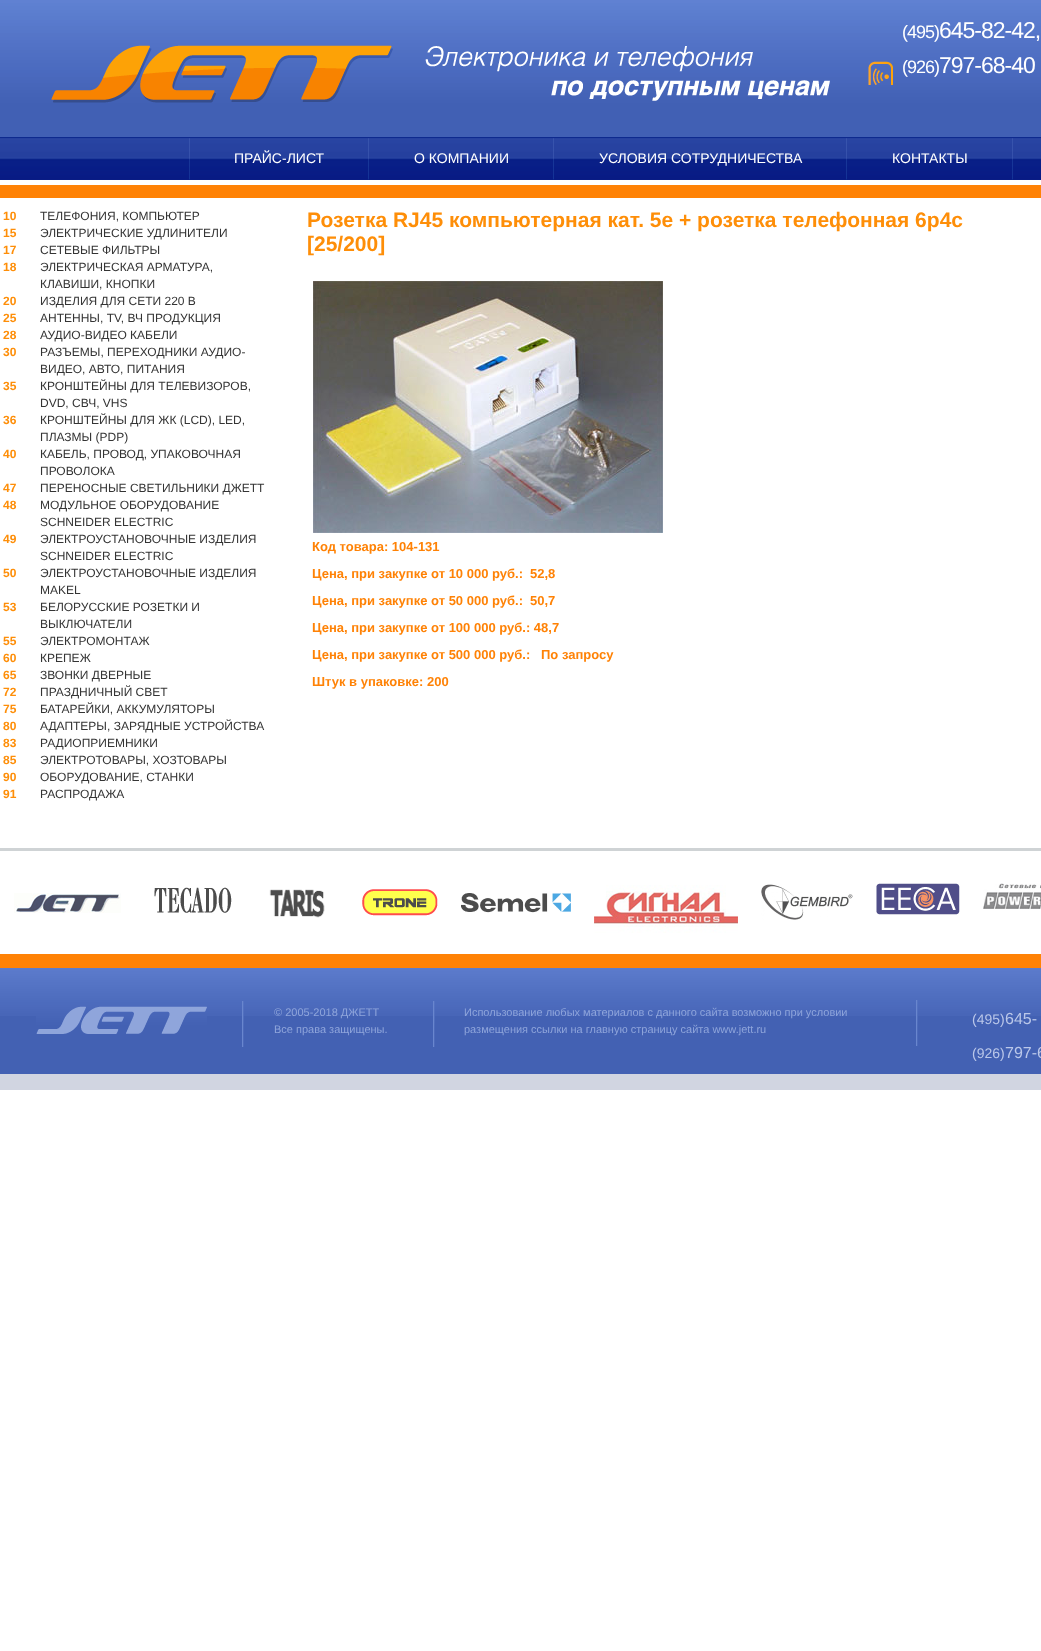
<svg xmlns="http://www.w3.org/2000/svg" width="1041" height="1651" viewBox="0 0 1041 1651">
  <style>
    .t1 { font: 18px Liberation Sans; letter-spacing: -1px; fill: #fff; }
    .t2 { font: 23px Liberation Sans; letter-spacing: -1px; fill: #fff; }
    .t3 { font: 14px Liberation Sans; fill: #fff; }
    .t4 { font: bold 12px Liberation Sans; fill: #fe8e08; }
    .t5 { font: 12px Liberation Sans; fill: #343434; }
    .t6 { font: bold 21px Liberation Sans; fill: #fe8e08; }
    .t7 { font: bold 13px Liberation Sans; fill: #ff8205; }
    .t8 { font: 11px Liberation Sans; fill: #8fa5db; }
    .t9 { font: 14px Liberation Sans; fill: #bac7e9; }
    .t10 { font: 16px Liberation Sans; fill: #bac7e9; }
  </style>
  <rect width="100%" height="100%" fill="#fff"/>
  <image x="0" y="180" width="1041" height="5" href="images/1.png"/>
  <image x="0" y="0" width="1041" height="137" href="images/2.png"/>
  <image x="51" y="45" width="342" height="58" href="images/3.png"/>
  <image x="425" y="46" width="405" height="55" href="images/4.png"/>
  <image x="868" y="61" width="25" height="24" href="images/5.png"/>
  <text x="902" y="38" class="t1">(495)</text>
  <text x="939" y="38" class="t2">645-82-42,</text>
  <text x="902" y="73" class="t1">(926)</text>
  <text x="939" y="73" class="t2">797-68-40</text>
  <image x="0" y="137" width="1041" height="43" href="images/6.png"/>
  <image x="189" y="138" width="1" height="42" href="images/7.png"/>
  <image x="368" y="138" width="1" height="42" href="images/7.png"/>
  <text x="234" y="163" class="t3">ПРАЙС-ЛИСТ</text>
  <image x="553" y="138" width="1" height="42" href="images/7.png"/>
  <text x="414" y="163" class="t3">О КОМПАНИИ</text>
  <image x="846" y="138" width="1" height="42" href="images/7.png"/>
  <text x="599" y="163" class="t3">УСЛОВИЯ СОТРУДНИЧЕСТВА</text>
  <image x="1012" y="138" width="1" height="42" href="images/7.png"/>
  <text x="892" y="163" class="t3">КОНТАКТЫ</text>
  <rect x="0" y="185" width="1041" height="13" fill="#ff8205"/>
  <text x="3" y="220" class="t4">10</text>
  <text x="40" y="220" class="t5">ТЕЛЕФОНИЯ, КОМПЬЮТЕР</text>
  <text x="3" y="237" class="t4">15</text>
  <text x="40" y="237" class="t5">ЭЛЕКТРИЧЕСКИЕ УДЛИНИТЕЛИ</text>
  <text x="3" y="254" class="t4">17</text>
  <text x="40" y="254" class="t5">СЕТЕВЫЕ ФИЛЬТРЫ</text>
  <text x="3" y="271" class="t4">18</text>
  <text x="40" y="271" class="t5">ЭЛЕКТРИЧЕСКАЯ АРМАТУРА,</text>
  <text x="40" y="288" class="t5">КЛАВИШИ, КНОПКИ</text>
  <text x="3" y="305" class="t4">20</text>
  <text x="40" y="305" class="t5">ИЗДЕЛИЯ ДЛЯ СЕТИ 220 В</text>
  <text x="3" y="322" class="t4">25</text>
  <text x="40" y="322" class="t5">АНТЕННЫ, TV, ВЧ ПРОДУКЦИЯ</text>
  <text x="3" y="339" class="t4">28</text>
  <text x="40" y="339" class="t5">АУДИО-ВИДЕО КАБЕЛИ</text>
  <text x="3" y="356" class="t4">30</text>
  <text x="40" y="356" class="t5">РАЗЪЕМЫ, ПЕРЕХОДНИКИ АУДИО-</text>
  <text x="40" y="373" class="t5">ВИДЕО, АВТО, ПИТАНИЯ</text>
  <text x="3" y="390" class="t4">35</text>
  <text x="40" y="390" class="t5">КРОНШТЕЙНЫ ДЛЯ ТЕЛЕВИЗОРОВ,</text>
  <text x="40" y="407" class="t5">DVD, СВЧ, VHS</text>
  <text x="3" y="424" class="t4">36</text>
  <text x="40" y="424" class="t5">КРОНШТЕЙНЫ ДЛЯ ЖК (LCD), LED,</text>
  <text x="40" y="441" class="t5">ПЛАЗМЫ (PDP)</text>
  <text x="3" y="458" class="t4">40</text>
  <text x="40" y="458" class="t5">КАБЕЛЬ, ПРОВОД, УПАКОВОЧНАЯ</text>
  <text x="40" y="475" class="t5">ПРОВОЛОКА</text>
  <text x="3" y="492" class="t4">47</text>
  <text x="40" y="492" class="t5">ПЕРЕНОСНЫЕ СВЕТИЛЬНИКИ ДЖЕТТ</text>
  <text x="3" y="509" class="t4">48</text>
  <text x="40" y="509" class="t5">МОДУЛЬНОЕ ОБОРУДОВАНИЕ</text>
  <text x="40" y="526" class="t5">SCHNEIDER ELECTRIC</text>
  <text x="3" y="543" class="t4">49</text>
  <text x="40" y="543" class="t5">ЭЛЕКТРОУСТАНОВОЧНЫЕ ИЗДЕЛИЯ</text>
  <text x="40" y="560" class="t5">SCHNEIDER ELECTRIC</text>
  <text x="3" y="577" class="t4">50</text>
  <text x="40" y="577" class="t5">ЭЛЕКТРОУСТАНОВОЧНЫЕ ИЗДЕЛИЯ</text>
  <text x="40" y="594" class="t5">MAKEL</text>
  <text x="3" y="611" class="t4">53</text>
  <text x="40" y="611" class="t5">БЕЛОРУССКИЕ РОЗЕТКИ И</text>
  <text x="40" y="628" class="t5">ВЫКЛЮЧАТЕЛИ</text>
  <text x="3" y="645" class="t4">55</text>
  <text x="40" y="645" class="t5">ЭЛЕКТРОМОНТАЖ</text>
  <text x="3" y="662" class="t4">60</text>
  <text x="40" y="662" class="t5">КРЕПЕЖ</text>
  <text x="3" y="679" class="t4">65</text>
  <text x="40" y="679" class="t5">ЗВОНКИ ДВЕРНЫЕ</text>
  <text x="3" y="696" class="t4">72</text>
  <text x="40" y="696" class="t5">ПРАЗДНИЧНЫЙ СВЕТ</text>
  <text x="3" y="713" class="t4">75</text>
  <text x="40" y="713" class="t5">БАТАРЕЙКИ, АККУМУЛЯТОРЫ</text>
  <text x="3" y="730" class="t4">80</text>
  <text x="40" y="730" class="t5">АДАПТЕРЫ, ЗАРЯДНЫЕ УСТРОЙСТВА</text>
  <text x="3" y="747" class="t4">83</text>
  <text x="40" y="747" class="t5">РАДИОПРИЕМНИКИ</text>
  <text x="3" y="764" class="t4">85</text>
  <text x="40" y="764" class="t5">ЭЛЕКТРОТОВАРЫ, ХОЗТОВАРЫ</text>
  <text x="3" y="781" class="t4">90</text>
  <text x="40" y="781" class="t5">ОБОРУДОВАНИЕ, СТАНКИ</text>
  <text x="3" y="798" class="t4">91</text>
  <text x="40" y="798" class="t5">РАСПРОДАЖА</text>
  <text x="307" y="227" class="t6">Розетка RJ45 компьютерная кат. 5е + розетка телефонная 6p4c</text>
  <text x="307" y="251" class="t6">[25/200]</text>
  <image x="313" y="281" width="350" height="252" href="images/8.png"/>
  <text x="312" y="551" class="t7">Код товара: 104-131</text>
  <text x="312" y="578" class="t7">Цена, при закупке от 10 000 руб.:</text>
  <text x="530" y="578" class="t7">52,8</text>
  <text x="312" y="605" class="t7">Цена, при закупке от 50 000 руб.:</text>
  <text x="530" y="605" class="t7">50,7</text>
  <text x="312" y="632" class="t7">Цена, при закупке от 100 000 руб.: 48,7</text>
  <text x="312" y="659" class="t7">Цена, при закупке от 500 000 руб.:</text>
  <text x="541" y="659" class="t7">По запросу</text>
  <text x="312" y="686" class="t7">Штук в упаковке: 200</text>
  <rect x="0" y="848" width="1041" height="3" fill="#cfd3d5"/>
  <image x="14" y="893" width="107" height="20" href="images/9.png"/>
  <image x="154" y="887" width="78" height="26" href="images/10.png"/>
  <image x="269" y="889" width="56" height="29" href="images/11.png"/>
  <image x="362" y="889" width="76" height="27" href="images/12.png"/>
  <image x="461" y="893" width="110" height="20" href="images/13.png"/>
  <image x="594" y="885" width="144" height="48" href="images/14.png"/>
  <image x="761" y="884" width="92" height="36" href="images/15.png"/>
  <image x="876" y="883" width="84" height="32" href="images/16.png"/>
  <image x="983" y="883" width="58" height="26" href="images/17.png"/>
  <rect x="0" y="1074" width="1041" height="16" fill="#d1d5e1"/>
  <rect x="0" y="954" width="1041" height="14" fill="#ff8205"/>
  <rect x="0" y="1016" width="1041" height="58" fill="#4361b3"/>
  <image x="0" y="968" width="1041" height="48" href="images/18.png"/>
  <image x="36" y="1006" width="171" height="28" href="images/19.png"/>
  <image x="242" y="1001" width="2" height="46" href="images/20.png"/>
  <text x="274" y="1016" class="t8">© 2005-2018 ДЖЕТТ</text>
  <text x="274" y="1033" class="t8">Все права защищены.</text>
  <image x="433" y="1001" width="2" height="46" href="images/20.png"/>
  <text x="464" y="1016" class="t8">Использование любых материалов с данного сайта возможно при условии</text>
  <text x="464" y="1033" class="t8">размещения ссылки на главную страницу сайта www.jett.ru</text>
  <image x="916" y="1000" width="2" height="46" href="images/20.png"/>
  <text x="972" y="1024" class="t9">(495)</text>
  <text x="1005" y="1024" class="t10">645-</text>
  <text x="972" y="1058" class="t9">(926)</text>
  <text x="1005" y="1058" class="t10">797-6</text>
</svg>
